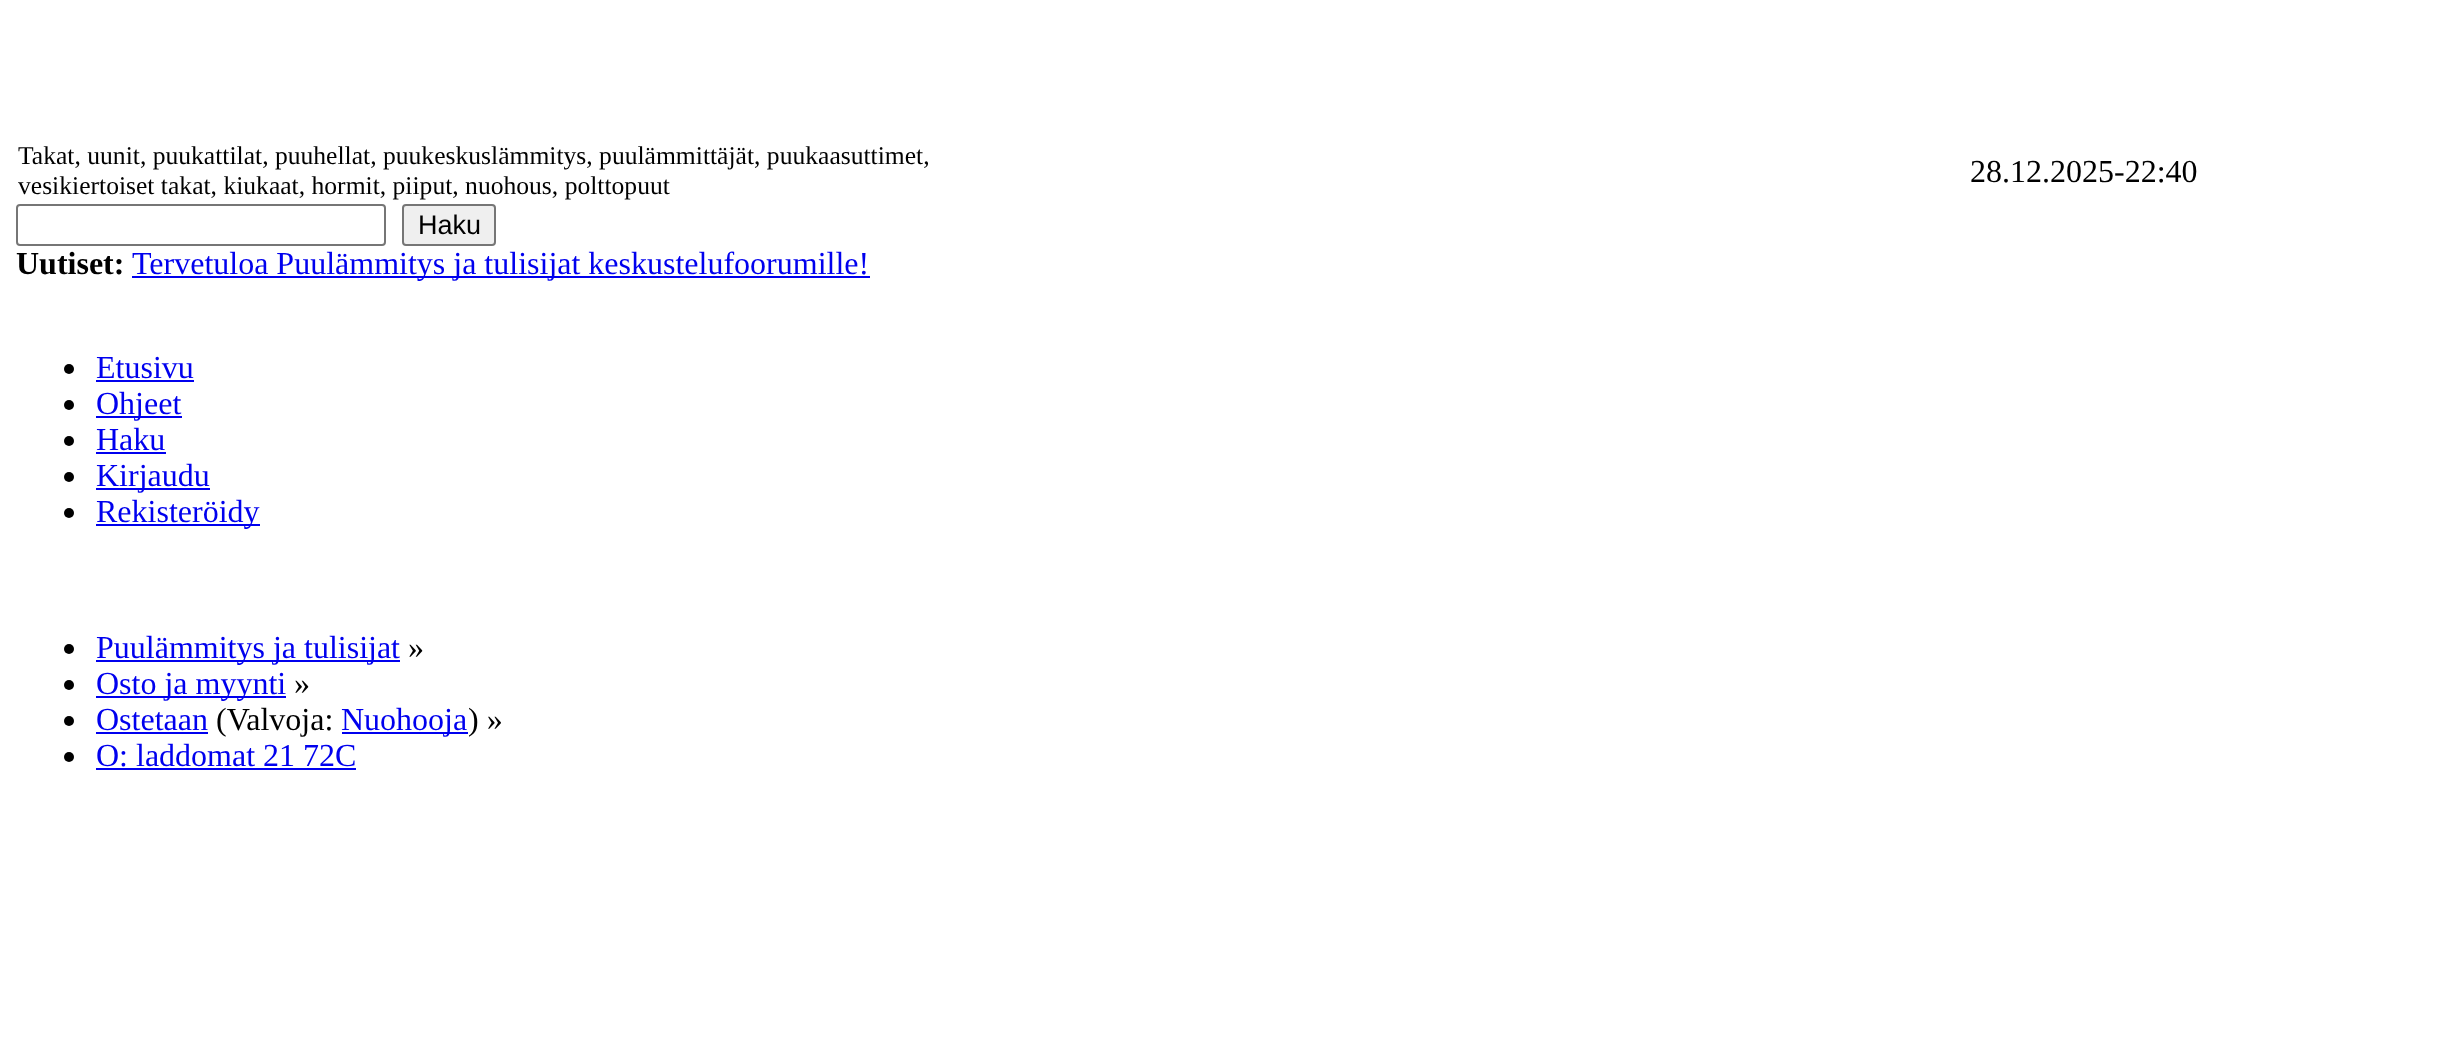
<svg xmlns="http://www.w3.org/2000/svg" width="2458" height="1037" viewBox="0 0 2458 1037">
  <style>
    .t1 { font: 25.6px Liberation Serif; fill: #000; }
    .t2 { font: 32px Liberation Serif; fill: #000; }
    .t3 { font: 27px Liberation Sans; fill: #000; }
    .t4 { font: bold 32px Liberation Serif; fill: #000; }
    .t5 { font: 32px Liberation Serif; fill: #00e; }
  </style>
  <rect width="100%" height="100%" fill="#fff"/>
  <text x="18" y="164" class="t1">Takat, uunit, puukattilat, puuhellat, puukeskuslämmitys, puulämmittäjät, puukaasuttimet,</text>
  <text x="18" y="194" class="t1">vesikiertoiset takat, kiukaat, hormit, piiput, nuohous, polttopuut</text>
  <text x="1970" y="182" class="t2">28.12.2025-22:40</text>
  <rect x="17" y="205" width="368" height="40" rx="3" fill="none" stroke="#767676" stroke-width="2"/>
  <rect x="403" y="205" width="92" height="40" rx="3" fill="#efefef" stroke="#767676" stroke-width="2"/>
  <text x="418" y="234" class="t3">Haku</text>
  <text x="16" y="274" class="t4">Uutiset:</text>
  <rect x="132" y="276" width="738" height="2" fill="#00e"/>
  <text x="132" y="274" class="t5">Tervetuloa Puulämmitys ja tulisijat keskustelufoorumille!</text>
  <circle cx="69" cy="369" r="5" fill="#000"/>
  <text x="96" y="378" class="t5">Etusivu</text>
  <rect x="96" y="380" width="98" height="2" fill="#00e"/>
  <circle cx="69" cy="405" r="5" fill="#000"/>
  <rect x="96" y="416" width="86" height="2" fill="#00e"/>
  <text x="96" y="414" class="t5">Ohjeet</text>
  <circle cx="69" cy="441" r="5" fill="#000"/>
  <text x="96" y="450" class="t5">Haku</text>
  <rect x="96" y="452" width="70" height="2" fill="#00e"/>
  <circle cx="69" cy="477" r="5" fill="#000"/>
  <rect x="96" y="488" width="114" height="2" fill="#00e"/>
  <text x="96" y="486" class="t5">Kirjaudu</text>
  <circle cx="69" cy="513" r="5" fill="#000"/>
  <rect x="96" y="524" width="164" height="2" fill="#00e"/>
  <text x="96" y="522" class="t5">Rekisteröidy</text>
  <circle cx="69" cy="649" r="5" fill="#000"/>
  <rect x="96" y="660" width="304" height="2" fill="#00e"/>
  <text x="96" y="658" class="t5">Puulämmitys ja tulisijat</text>
  <text x="408" y="658" class="t2">»</text>
  <circle cx="69" cy="685" r="5" fill="#000"/>
  <rect x="96" y="696" width="190" height="2" fill="#00e"/>
  <text x="96" y="694" class="t5">Osto ja myynti</text>
  <text x="294" y="694" class="t2">»</text>
  <circle cx="69" cy="721" r="5" fill="#000"/>
  <text x="96" y="730" class="t5">Ostetaan</text>
  <rect x="96" y="732" width="112" height="2" fill="#00e"/>
  <text x="216" y="730" class="t2">(Valvoja:</text>
  <rect x="342" y="732" width="126" height="2" fill="#00e"/>
  <text x="341" y="730" class="t5">Nuohooja</text>
  <text x="468" y="730" class="t2">) »</text>
  <circle cx="69" cy="757" r="5" fill="#000"/>
  <text x="96" y="766" class="t5">O: laddomat 21 72C</text>
  <rect x="96" y="768" width="260" height="2" fill="#00e"/>
</svg>
